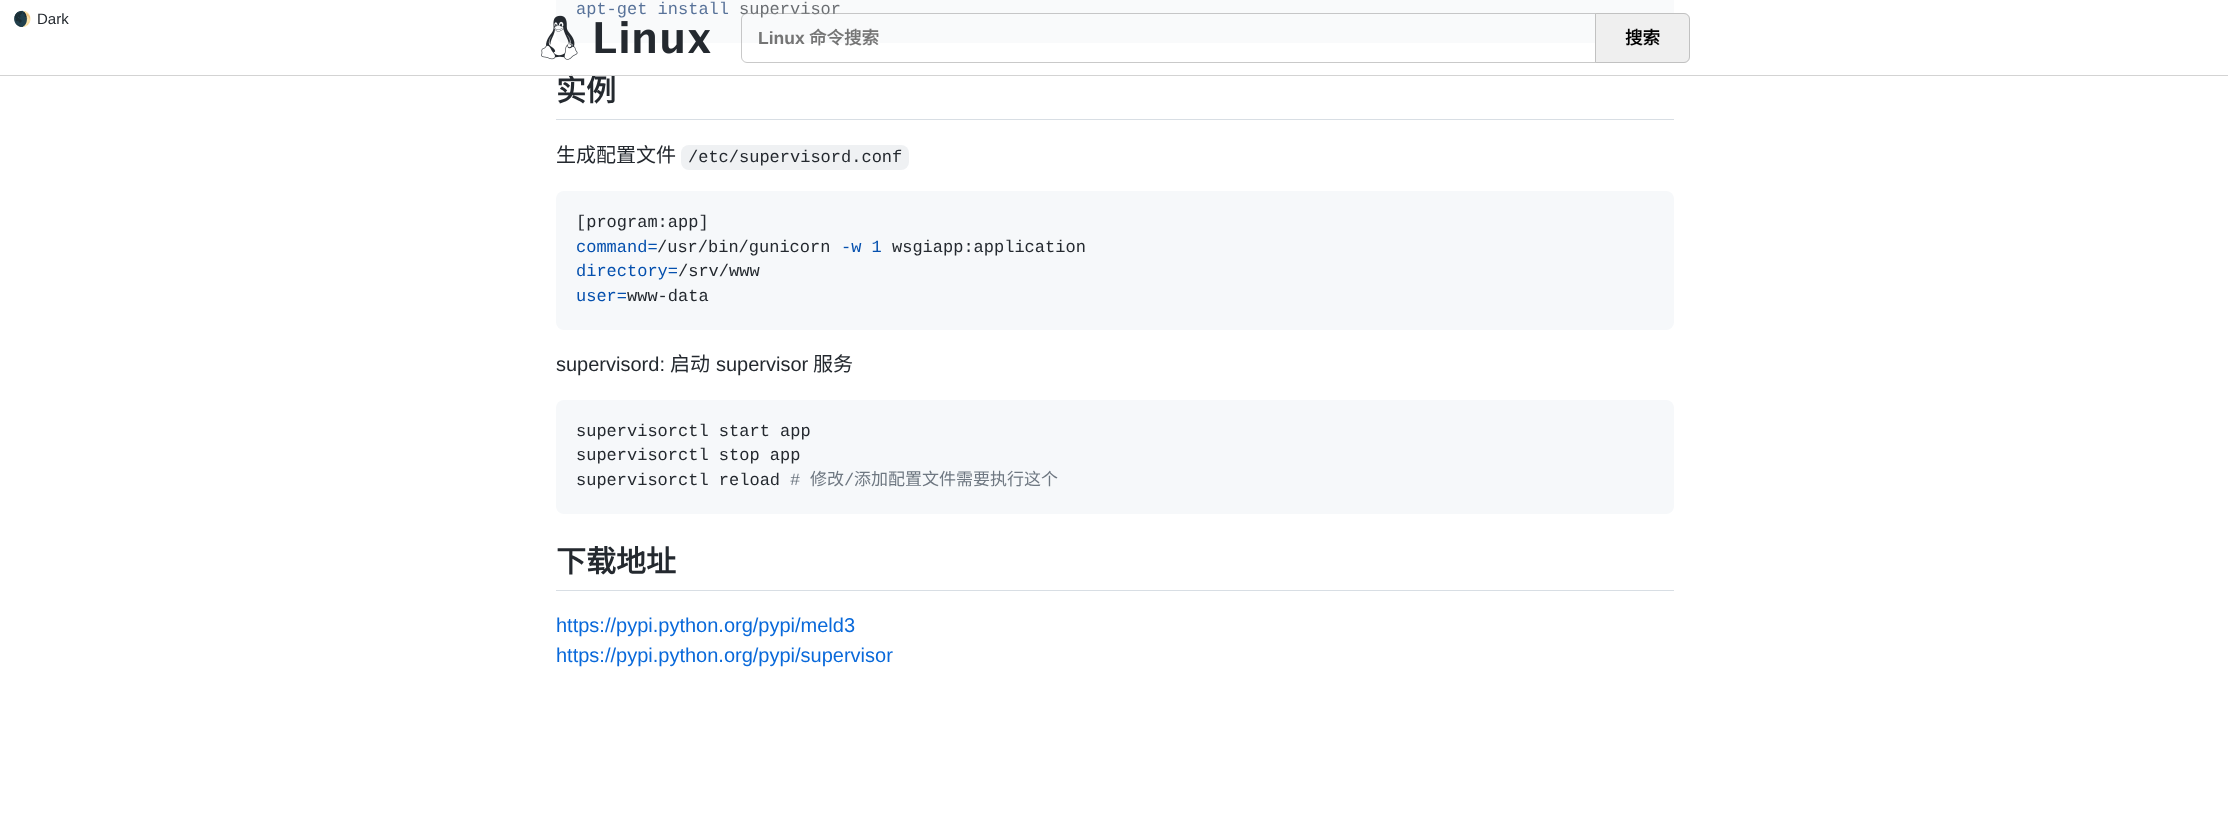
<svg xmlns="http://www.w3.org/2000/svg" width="2228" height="813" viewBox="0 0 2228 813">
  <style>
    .t1 { font: 15px Noto Color Emoji; fill: #24292f; }
    .t2 { font: 15px Liberation Sans; fill: #24292f; }
    .t3 { font: 17px Liberation Mono; fill: #0a3069; }
    .t4 { font: 17px Liberation Mono; fill: #24292f; }
    .t5 { font: bold 30px Noto Sans CJK SC; fill: #24292f; }
    .t6 { font: 20px Noto Sans CJK SC; fill: #24292f; }
    .t7 { font: 17px Liberation Mono; fill: #0550ae; }
    .t8 { font: 20px Liberation Sans; fill: #24292f; }
    .t9 { font: 17px Liberation Mono; fill: #6e7781; }
    .t10 { font: 17px Noto Sans CJK SC; fill: #6e7781; }
    .t11 { font: 20px Liberation Sans; fill: #0969da; }
    .t12 { font: bold 17.5px Liberation Sans; fill: #757575; }
    .t13 { font: bold 17.5px Noto Sans CJK SC; fill: #757575; }
    .t14 { font: bold 17.5px Noto Sans CJK SC; fill: #000; }
  </style>
  <rect width="100%" height="100%" fill="#fff"/>
  <text x="13" y="24" class="t1">🌒</text>
  <text x="37" y="24" class="t2">Dark</text>
  <rect x="556" y="-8" width="1118" height="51" rx="8" fill="#f6f8fa"/>
  <text x="576" y="14" class="t3">apt-get install</text>
  <text x="739" y="14" class="t4">supervisor</text>
  <rect x="556" y="119" width="1118" height="1" fill="#d8dee4"/>
  <text x="556" y="101" class="t5">实例</text>
  <text x="556" y="162" class="t6">生成配置文件</text>
  <rect x="681" y="145" width="228" height="25" rx="8" fill="#eff1f3"/>
  <text x="688" y="162" class="t4">/etc/supervisord.conf</text>
  <rect x="556" y="191" width="1118" height="139" rx="8" fill="#f6f8fa"/>
  <text x="576" y="227" class="t4">[program:app]</text>
  <text x="576" y="252" class="t7">command=</text>
  <text x="657" y="252" class="t4">/usr/bin/gunicorn</text>
  <text x="841" y="252" class="t7">-w 1</text>
  <text x="892" y="252" class="t4">wsgiapp:application</text>
  <text x="576" y="276" class="t7">directory=</text>
  <text x="678" y="276" class="t4">/srv/www</text>
  <text x="576" y="301" class="t7">user=</text>
  <text x="627" y="301" class="t4">www-data</text>
  <text x="556" y="371" class="t8">supervisord:</text>
  <text x="670" y="371" class="t6">启动</text>
  <text x="716" y="371" class="t8">supervisor</text>
  <text x="813" y="371" class="t6">服务</text>
  <rect x="556" y="400" width="1118" height="114" rx="8" fill="#f6f8fa"/>
  <text x="576" y="436" class="t4">supervisorctl start app</text>
  <text x="576" y="460" class="t4">supervisorctl stop app</text>
  <text x="576" y="485" class="t4">supervisorctl reload</text>
  <text x="790" y="485" class="t9">#</text>
  <text x="810" y="485" class="t10">修改</text>
  <text x="844" y="485" class="t9">/</text>
  <text x="854" y="485" class="t10">添加配置文件需要执行这个</text>
  <rect x="556" y="590" width="1118" height="1" fill="#d8dee4"/>
  <text x="556" y="572" class="t5">下载地址</text>
  <text x="556" y="632" class="t11">https://pypi.python.org/pypi/meld3</text>
  <text x="556" y="662" class="t11">https://pypi.python.org/pypi/supervisor</text>
  <rect x="556" y="0" width="1118" height="43" fill="#ffffff52"/>
  <rect x="0" y="75" width="2228" height="1" fill="#d3d3d3"/>
  <image x="541" y="15" width="170" height="45" href="images/1.png"/>
  <path d="M747 13.5H1595.5V62.5H747C744 62.5 741.5 60 741.5 57V19C741.5 16 744 13.5 747 13.5Z" fill="none" stroke="#8f8f8f7a"/>
  <text x="758" y="44" class="t12">Linux</text>
  <text x="809" y="44" class="t13">命令搜索</text>
  <path d="M1595 13H1684C1687.5 13 1690 15.5 1690 19V57C1690 60.5 1687.5 63 1684 63H1595Z" fill="#efefef"/>
  <path d="M1595.5 13.5H1684C1687 13.5 1689.5 16 1689.5 19V57C1689.5 60 1687 62.5 1684 62.5H1595.5Z" fill="none" stroke="#8f8f8f7a"/>
  <text x="1625" y="44" class="t14">搜索</text>
</svg>
